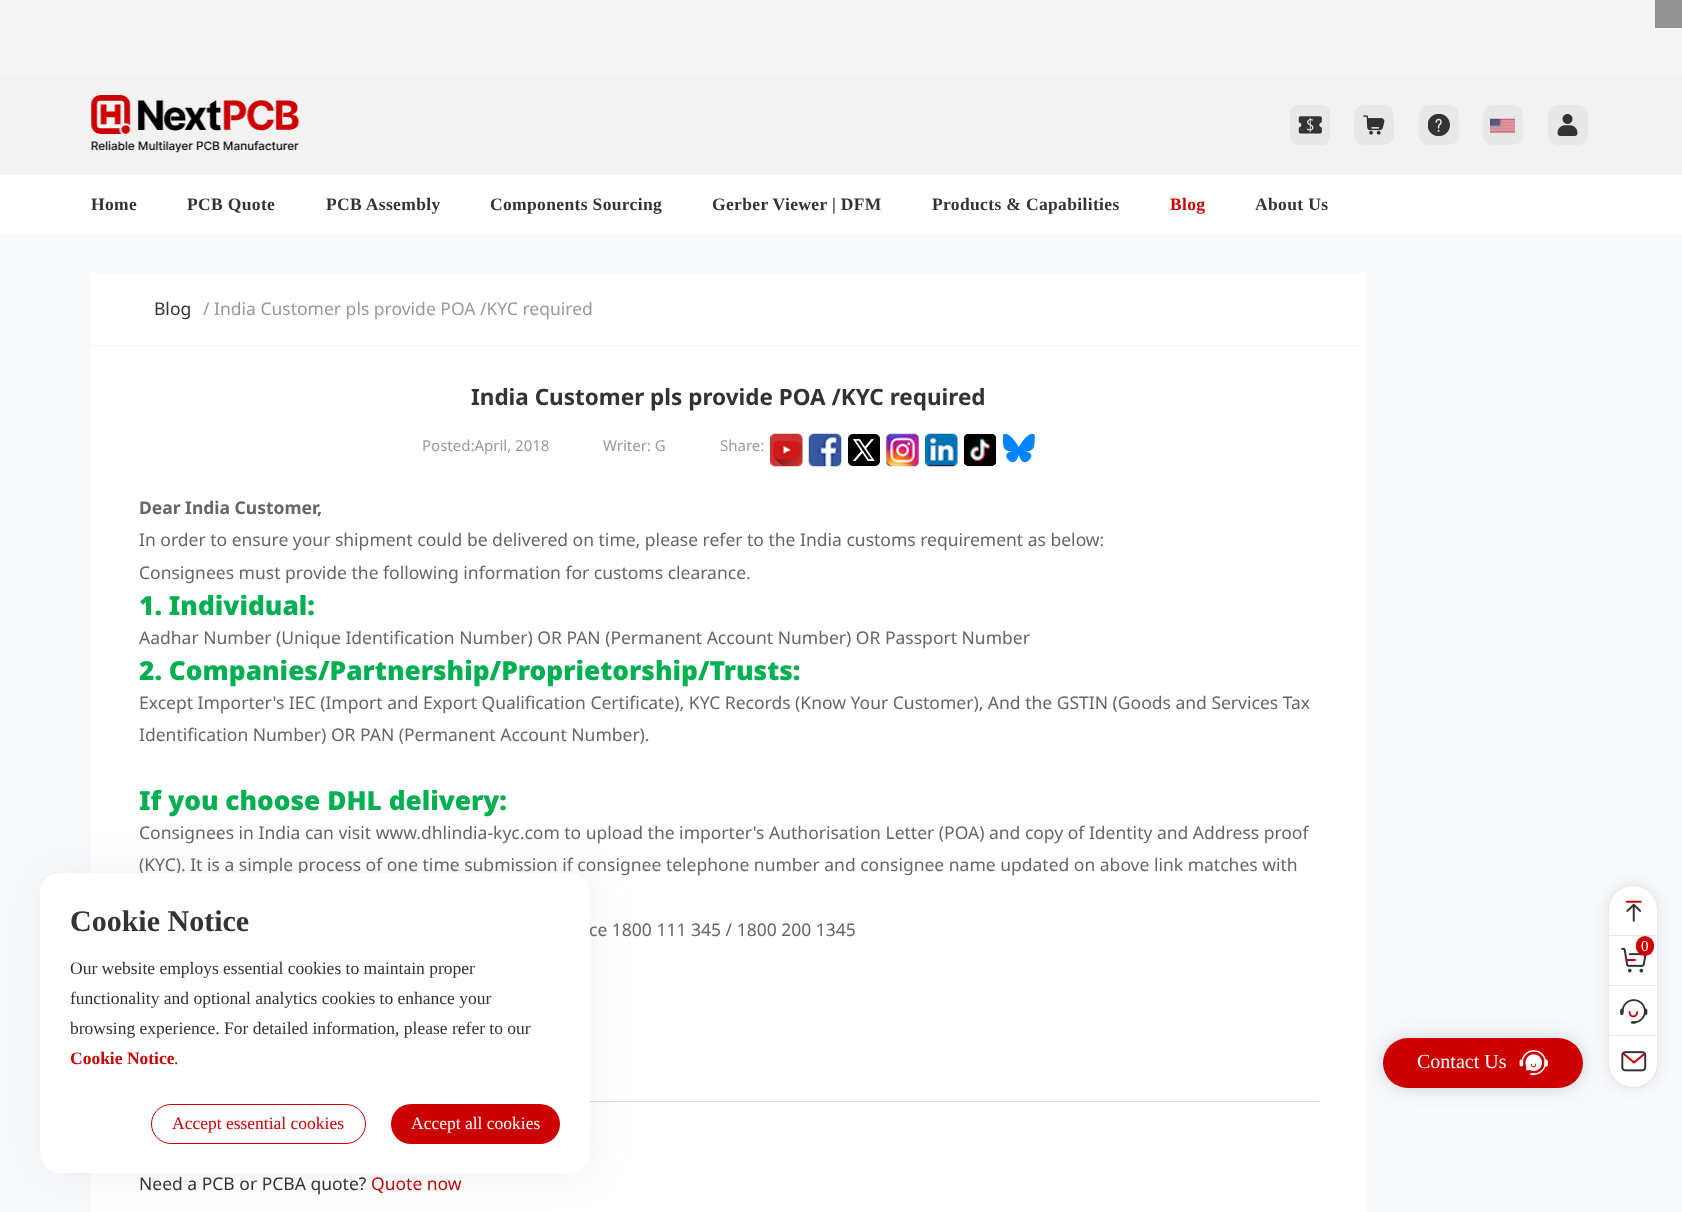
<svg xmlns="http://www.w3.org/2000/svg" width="1682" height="1212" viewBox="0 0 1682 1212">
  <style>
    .t1 { font: bold 17.5px Liberation Serif; letter-spacing: 0.35px; fill: #333; }
    .t2 { font: bold 17.5px Liberation Serif; letter-spacing: 0.35px; fill: #c00; }
    .t3 { font: 17.5px Noto Sans; fill: #333; }
    .t4 { font: 17.5px Noto Sans; fill: #999; }
    .t5 { font: bold 22.5px Noto Sans; fill: #333; }
    .t6 { font: 15px Noto Sans; fill: #999; }
    .t7 { font: bold 17.5px Noto Sans; fill: #666; }
    .t8 { font: 17.5px Noto Sans; fill: #666; }
    .t9 { font: 900 26.25px Noto Sans; fill: #00b050; }
    .t10 { font: 17.5px Noto Sans; fill: #c00; }
    .t11 { font: bold 30px Liberation Serif; fill: #333; }
    .t12 { font: 17.5px Liberation Serif; fill: #333; }
    .t13 { font: bold 17.5px Liberation Serif; fill: #c00; }
    .t14 { font: 17.5px Liberation Serif; fill: #c00; }
    .t15 { font: 17.5px Liberation Serif; fill: #fff; }
    .t16 { font: 15px Liberation Serif; fill: #fff; }
    .t17 { font: 20px Liberation Serif; fill: #fff; }
  </style>
  <rect width="100%" height="100%" fill="#f9fafd"/>
  <rect x="0" y="0" width="1682" height="75" fill="#f5f5f5"/>
  <rect x="1655" y="0" width="27" height="28" fill="#939393"/>
  <rect x="0" y="75" width="1682" height="100" fill="#f2f2f2"/>
  <image x="91" y="95" width="209" height="58" href="images/1.png"/>
  <image x="1290" y="105" width="40" height="40" href="images/2.png"/>
  <rect x="1354" y="105" width="40" height="40" rx="10" fill="#e8e8e8"/>
  <image x="1363" y="115" width="22" height="20" href="images/3.png"/>
  <rect x="1419" y="105" width="40" height="40" rx="10" fill="#e8e8e8"/>
  <image x="1428" y="114" width="22" height="22" href="images/4.png"/>
  <rect x="1483" y="105" width="40" height="40" rx="10" fill="#e8e8e8"/>
  <rect x="1490" y="119" width="25" height="15" fill="#888" filter="blur(0.5px)"/>
  <rect x="1490" y="132" width="25" height="2" fill="#dbdbdb"/>
  <image x="1490" y="118" width="25" height="15" href="images/5.png"/>
  <rect x="1548" y="105" width="40" height="40" rx="10" fill="#e8e8e8"/>
  <image x="1557" y="114" width="21" height="22" href="images/6.png"/>
  <rect x="0" y="175" width="1682" height="60" fill="#fff"/>
  <text x="91" y="210" class="t1">Home</text>
  <text x="187" y="210" class="t1">PCB Quote</text>
  <text x="326" y="210" class="t1">PCB Assembly</text>
  <text x="490" y="210" class="t1">Components Sourcing</text>
  <text x="712" y="210" class="t1">Gerber Viewer | DFM</text>
  <text x="932" y="210" class="t1">Products &amp; Capabilities</text>
  <text x="1170" y="210" class="t2">Blog</text>
  <text x="1255" y="210" class="t1">About Us</text>
  <rect x="91" y="273" width="1275" height="72" fill="#fff"/>
  <rect x="91" y="345" width="1275" height="1" fill="#f4f4f4"/>
  <text x="154" y="315" class="t3">Blog</text>
  <text x="203" y="315" class="t4">/ India Customer pls provide POA /KYC required</text>
  <rect x="91" y="346" width="1275" height="866" fill="#fff"/>
  <text x="471" y="405" class="t5">India Customer pls provide POA /KYC required</text>
  <text x="422" y="451" class="t6">Posted:April, 2018</text>
  <text x="603" y="451" class="t6">Writer: G</text>
  <text x="720" y="451" class="t6">Share:</text>
  <image x="770" y="433" width="33" height="34" href="images/7.png"/>
  <image x="808" y="433" width="34" height="34" href="images/8.png"/>
  <image x="848" y="434" width="32" height="32" href="images/9.png"/>
  <image x="886" y="433" width="33" height="34" href="images/10.png"/>
  <image x="925" y="433" width="33" height="34" href="images/11.png"/>
  <image x="963" y="433" width="34" height="34" href="images/12.png"/>
  <image x="1003" y="434" width="32" height="29" href="images/13.png"/>
  <text x="139" y="514" class="t7">Dear India Customer,</text>
  <text x="139" y="546" class="t8">In order to ensure your shipment could be delivered on time, please refer to the India customs requirement as below:</text>
  <text x="139" y="579" class="t8">Consignees must provide the following information for customs clearance.</text>
  <text x="139" y="615" class="t9">1. Individual:</text>
  <text x="139" y="644" class="t8">Aadhar Number (Unique Identification Number) OR PAN (Permanent Account Number) OR Passport Number</text>
  <text x="139" y="680" class="t9">2. Companies/Partnership/Proprietorship/Trusts:</text>
  <text x="139" y="709" class="t8">Except Importer's IEC (Import and Export Qualification Certificate), KYC Records (Know Your Customer), And the GSTIN (Goods and Services Tax</text>
  <text x="139" y="741" class="t8">Identification Number) OR PAN (Permanent Account Number).</text>
  <text x="139" y="810" class="t9">If you choose DHL delivery:</text>
  <text x="139" y="839" class="t8">Consignees in India can visit www.dhlindia-kyc.com to upload the importer's Authorisation Letter (POA) and copy of Identity and Address proof</text>
  <text x="139" y="871" class="t8">(KYC). It is a simple process of one time submission if consignee telephone number and consignee name updated on above link matches with</text>
  <text x="589" y="936" class="t8">ce 1800 111 345 / 1800 200 1345</text>
  <rect x="590" y="1101" width="729" height="1" fill="#dbdbdb"/>
  <text x="139" y="1190" class="t3">Need a PCB or PCBA quote?</text>
  <text x="371" y="1190" class="t10">Quote now</text>
  <rect x="40" y="873" width="550" height="300" rx="20" fill="#506b8a1a" filter="blur(20px)"/>
  <rect x="40" y="873" width="550" height="300" rx="20" fill="#fff"/>
  <text x="70" y="931" class="t11">Cookie Notice</text>
  <text x="70" y="974" class="t12">Our website employs essential cookies to maintain proper</text>
  <text x="70" y="1004" class="t12">functionality and optional analytics cookies to enhance your</text>
  <text x="70" y="1034" class="t12">browsing experience. For detailed information, please refer to our</text>
  <text x="70" y="1064" class="t13">Cookie Notice</text>
  <text x="174" y="1064" class="t12">.</text>
  <rect x="151.5" y="1104.5" width="214" height="39" rx="19.5" fill="none" stroke="#c00"/>
  <text x="172" y="1129" class="t14">Accept essential cookies</text>
  <rect x="391" y="1104" width="169" height="40" rx="20" fill="#c00"/>
  <text x="411" y="1129" class="t15">Accept all cookies</text>
  <rect x="1608" y="885" width="50" height="203" rx="25" fill="#0000001a" filter="blur(7.5px)"/>
  <rect x="1383" y="1038" width="200" height="50" rx="25" fill="#2b2e3333" filter="blur(10px)"/>
  <rect x="1608.5" y="885.5" width="49" height="202" rx="24.5" fill="#fff" stroke="#e8e8e8"/>
  <rect x="1609" y="935" width="47" height="1" fill="#e8e8e8"/>
  <image x="1625" y="900" width="17" height="22" href="images/14.png"/>
  <rect x="1609" y="985" width="47" height="1" fill="#e8e8e8"/>
  <image x="1621" y="947" width="26" height="26" href="images/15.png"/>
  <rect x="1636" y="936" width="18" height="20" rx="9" fill="#c00"/>
  <text x="1641" y="951" class="t16">0</text>
  <rect x="1609" y="1035" width="47" height="1" fill="#e8e8e8"/>
  <image x="1620" y="999" width="28" height="25" href="images/16.png"/>
  <image x="1621" y="1051" width="26" height="21" href="images/17.png"/>
  <rect x="1383" y="1038" width="200" height="50" rx="25" fill="#c00"/>
  <text x="1417" y="1068" class="t17">Contact Us</text>
  <image x="1519" y="1050" width="29" height="26" href="images/18.png"/>
</svg>
